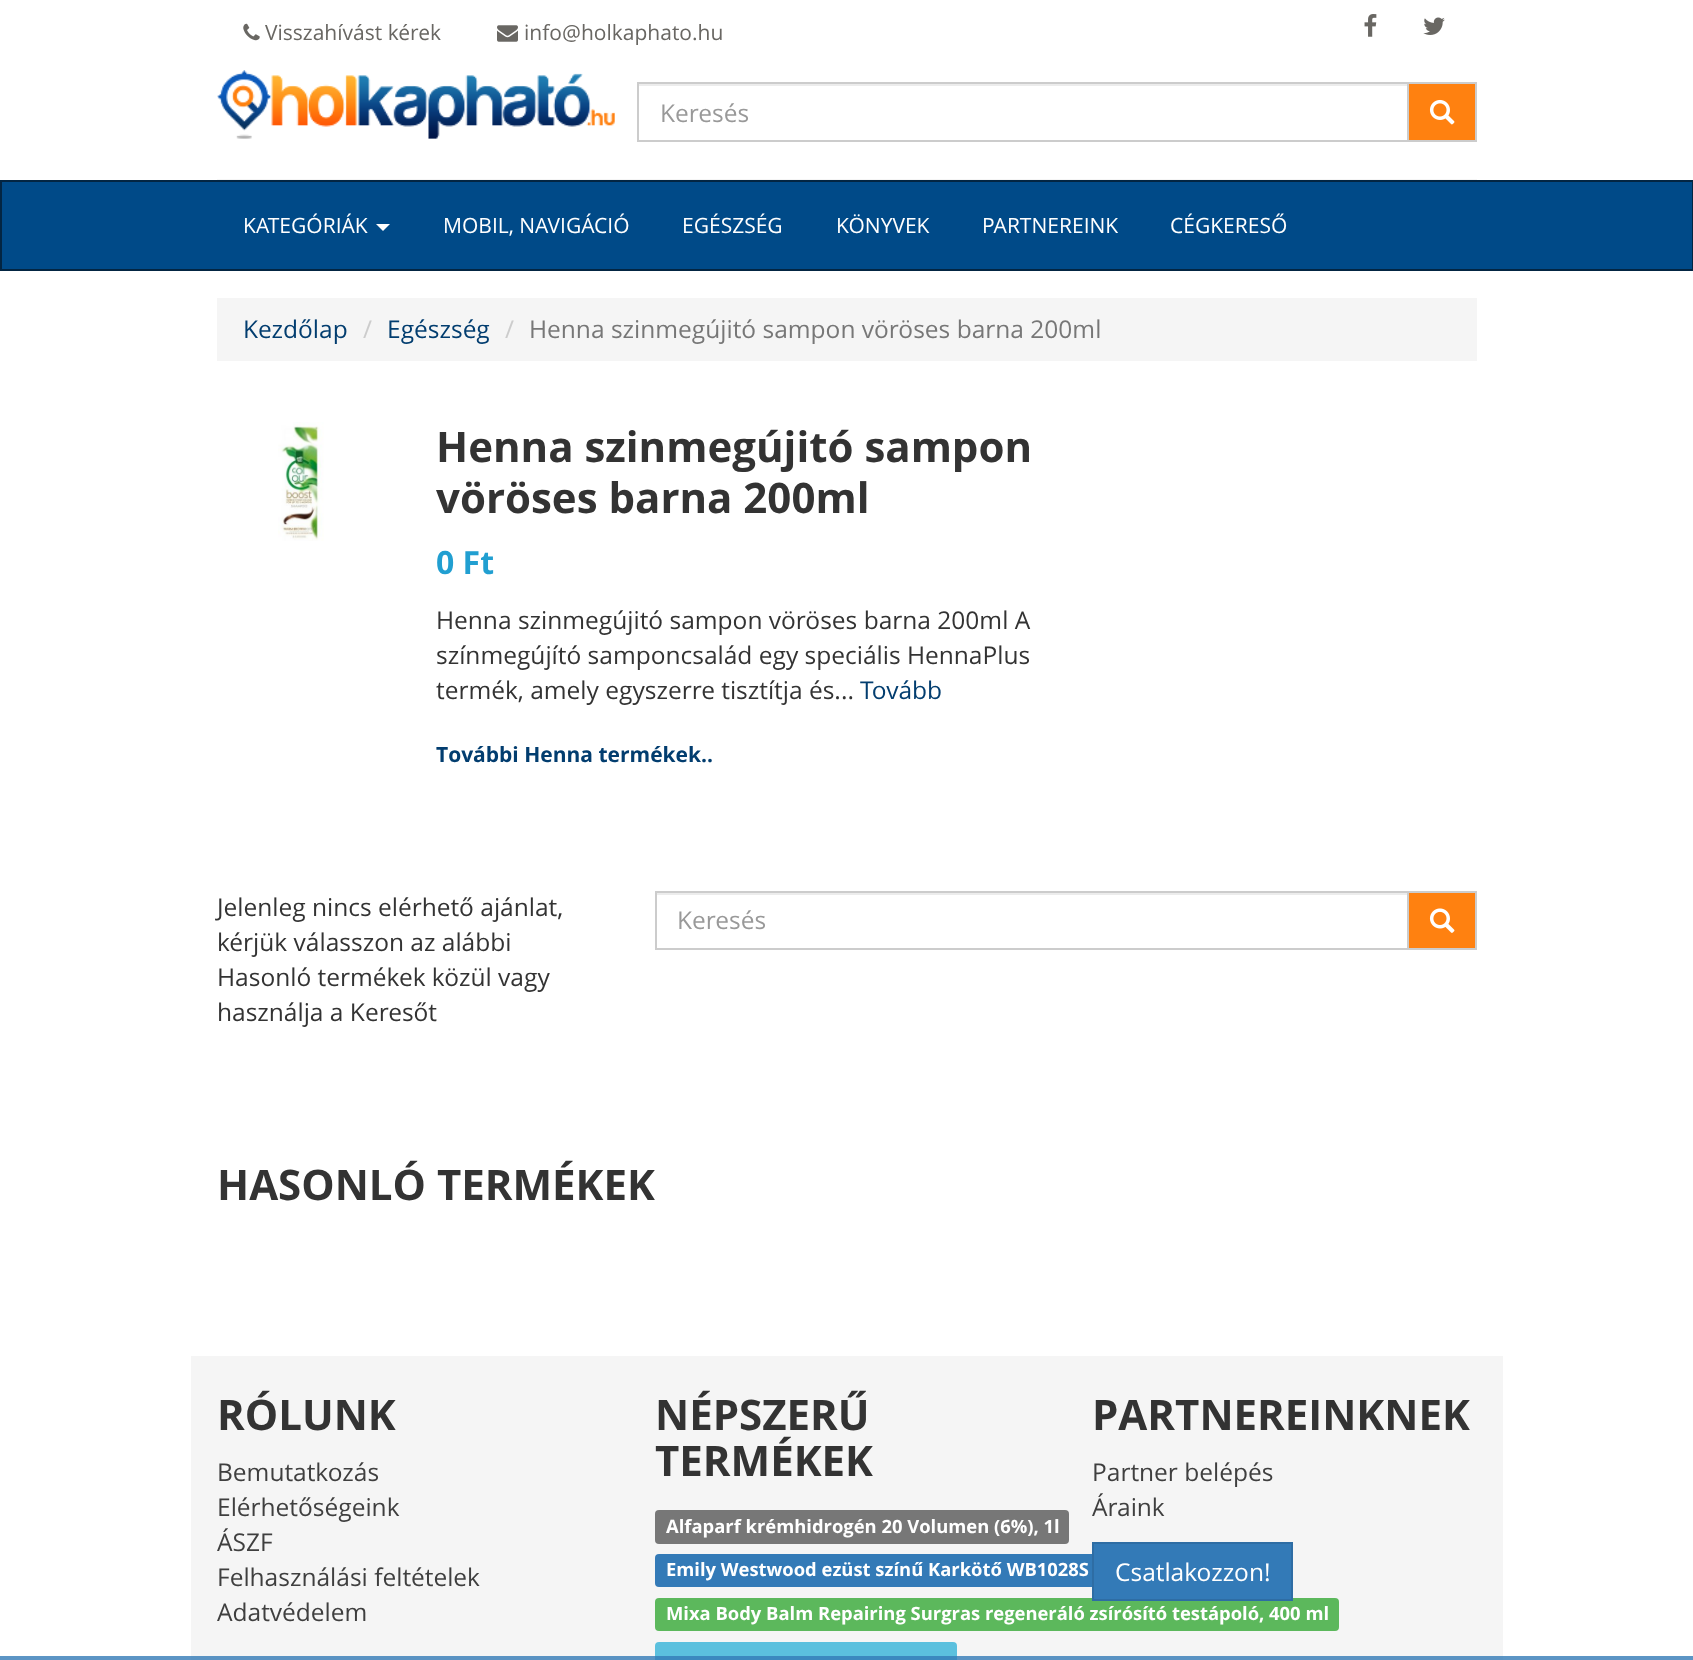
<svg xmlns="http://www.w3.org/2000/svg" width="1693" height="1660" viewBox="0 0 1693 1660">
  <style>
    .t1 { font: 21px Open Sans; fill: #696763; }
    .t2 { font: 24.5px Open Sans; fill: #999; }
    .t3 { font: 21px Open Sans; fill: #fff; }
    .t4 { font: 24.5px Open Sans; fill: #023d6f; }
    .t5 { font: 24.5px Open Sans; fill: #ccc; }
    .t6 { font: 24.5px Open Sans; fill: #777; }
    .t7 { font: bold 42px Open Sans; fill: #333; }
    .t8 { font: bold 32px Open Sans; fill: #219fd1; }
    .t9 { font: 24.5px Open Sans; fill: #333; }
    .t10 { font: bold 21px Open Sans; fill: #023d6f; }
    .t11 { font: 24.5px Open Sans; fill: #3f3f3f; }
    .t12 { font: bold 18.4px Open Sans; fill: #fff; }
    .t13 { font: 24.5px Open Sans; fill: #fff; }
  </style>
  <rect width="100%" height="100%" fill="#fff"/>
  <image x="243" y="23" width="17" height="18" href="images/1.png"/>
  <text x="265" y="40" class="t1">Visszahívást kérek</text>
  <image x="497" y="25" width="21" height="17" href="images/2.png"/>
  <text x="524" y="40" class="t1">info@holkaphato.hu</text>
  <image x="1364" y="14" width="13" height="23" href="images/3.png"/>
  <image x="1423" y="17" width="22" height="18" href="images/4.png"/>
  <rect x="217" y="179" width="1260" height="1" fill="#f5f5f5"/>
  <image x="217" y="70" width="398" height="69" href="images/5.png"/>
  <rect x="639" y="84" width="768" height="2" fill="#ececec"/>
  <rect x="1408" y="83" width="68" height="58" fill="#ff8110" stroke="#ccc" stroke-width="2"/>
  <rect x="638" y="83" width="770" height="58" fill="none" stroke="#ccc" stroke-width="2"/>
  <text x="660" y="122" class="t2">Keresés</text>
  <image x="1429" y="99" width="26" height="26" href="images/6.png"/>
  <rect x="1" y="181" width="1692" height="89" fill="#004a88" stroke="#032542" stroke-width="2"/>
  <text x="243" y="233" class="t3">KATEGÓRIÁK</text>
  <path d="M376 224H390L383 231Z" fill="#fff"/>
  <text x="443" y="233" class="t3">MOBIL, NAVIGÁCIÓ</text>
  <text x="682" y="233" class="t3">EGÉSZSÉG</text>
  <text x="836" y="233" class="t3">KÖNYVEK</text>
  <text x="982" y="233" class="t3">PARTNEREINK</text>
  <text x="1170" y="233" class="t3">CÉGKERESŐ</text>
  <rect x="217" y="298" width="1260" height="63" fill="#f5f5f5"/>
  <text x="243" y="338" class="t4">Kezdőlap</text>
  <text x="363" y="338" class="t5">/</text>
  <text x="387" y="338" class="t4">Egészség</text>
  <text x="505" y="338" class="t5">/</text>
  <text x="529" y="338" class="t6">Henna szinmegújitó sampon vöröses barna 200ml</text>
  <image x="278" y="422" width="46" height="119" href="images/7.png"/>
  <text x="436" y="462" class="t7">Henna szinmegújitó sampon</text>
  <text x="436" y="513" class="t7">vöröses barna 200ml</text>
  <text x="436" y="574" class="t8">0 Ft</text>
  <text x="436" y="629" class="t9">Henna szinmegújitó sampon vöröses barna 200ml A</text>
  <text x="436" y="664" class="t9">színmegújító samponcsalád egy speciális HennaPlus</text>
  <text x="436" y="699" class="t9">termék, amely egyszerre tisztítja és...</text>
  <text x="860" y="699" class="t4">Tovább</text>
  <text x="436" y="762" class="t10">További Henna termékek..</text>
  <text x="217" y="916" class="t9">Jelenleg nincs elérhető ajánlat,</text>
  <text x="217" y="951" class="t9">kérjük válasszon az alábbi</text>
  <text x="217" y="986" class="t9">Hasonló termékek közül vagy</text>
  <text x="217" y="1021" class="t9">használja a Keresőt</text>
  <rect x="656" y="893" width="751" height="2" fill="#ececec"/>
  <rect x="1408" y="892" width="68" height="57" fill="#ff8110" stroke="#ccc" stroke-width="2"/>
  <rect x="656" y="892" width="752" height="57" fill="none" stroke="#ccc" stroke-width="2"/>
  <text x="677" y="929" class="t2">Keresés</text>
  <image x="1429" y="908" width="26" height="25" href="images/8.png"/>
  <text x="217" y="1200" class="t7">HASONLÓ TERMÉKEK</text>
  <rect x="191" y="1356" width="1312" height="304" fill="#f5f5f5"/>
  <text x="217" y="1430" class="t7">RÓLUNK</text>
  <text x="217" y="1481" class="t11">Bemutatkozás</text>
  <text x="217" y="1516" class="t11">Elérhetőségeink</text>
  <text x="217" y="1551" class="t11">ÁSZF</text>
  <text x="217" y="1586" class="t11">Felhasználási feltételek</text>
  <text x="217" y="1621" class="t11">Adatvédelem</text>
  <text x="655" y="1430" class="t7">NÉPSZERŰ</text>
  <text x="655" y="1476" class="t7">TERMÉKEK</text>
  <rect x="655" y="1510" width="414" height="34" rx="4" fill="#777"/>
  <text x="666" y="1533" class="t12">Alfaparf krémhidrogén 20 Volumen (6%), 1l</text>
  <rect x="655" y="1554" width="444" height="33" rx="4" fill="#337ab7"/>
  <text x="666" y="1576" class="t12">Emily Westwood ezüst színű Karkötő WB1028S</text>
  <rect x="655" y="1598" width="684" height="33" rx="4" fill="#5cb85c"/>
  <text x="666" y="1620" class="t12">Mixa Body Balm Repairing Surgras regeneráló zsírósító testápoló, 400 ml</text>
  <rect x="655" y="1642" width="302" height="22" rx="4" fill="#5bc0de"/>
  <text x="1092" y="1430" class="t7">PARTNEREINKNEK</text>
  <text x="1092" y="1481" class="t11">Partner belépés</text>
  <text x="1092" y="1516" class="t11">Áraink</text>
  <rect x="1093" y="1543" width="199" height="57" fill="#337ab7" stroke="#2e6da4" stroke-width="2"/>
  <text x="1115" y="1581" class="t13">Csatlakozzon!</text>
  <rect x="0" y="1656" width="1693" height="4" fill="#337ab7cc"/>
</svg>
